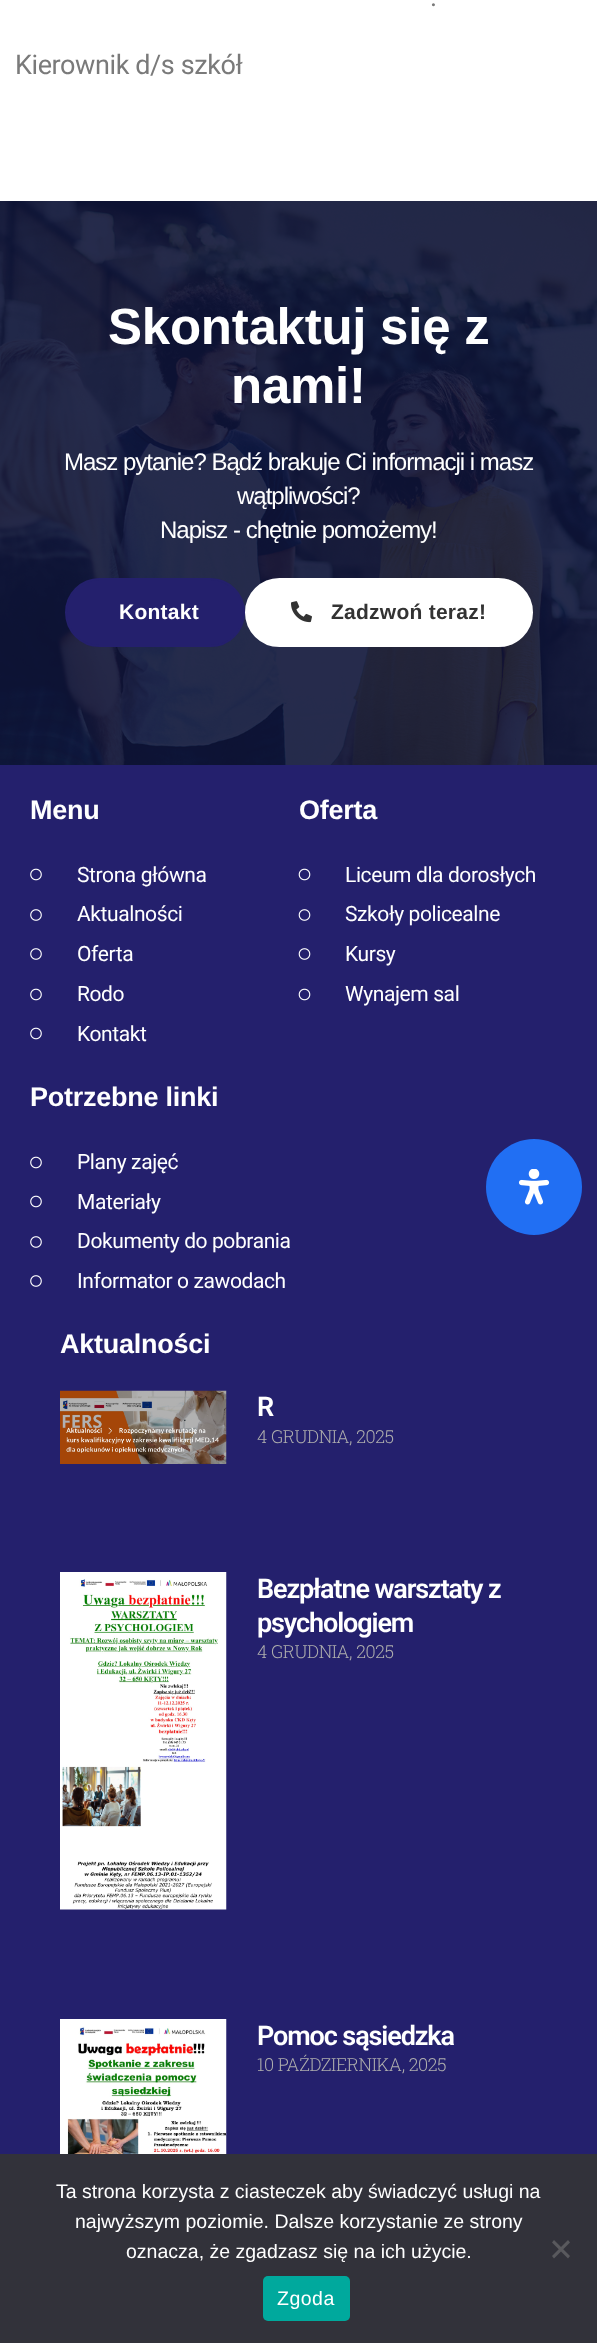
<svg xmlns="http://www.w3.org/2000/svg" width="597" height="2343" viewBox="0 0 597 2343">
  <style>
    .t1 { font: 27px Roboto; letter-spacing: -0.4px; fill: #7a7a7a; }
    .t2 { font: bold 51px Liberation Sans; letter-spacing: -0.25px; fill: #fff; }
    .t3 { font: 24px Liberation Sans; letter-spacing: -1px; fill: #fff; }
    .t4 { font: bold 21px Liberation Sans; letter-spacing: 0.25px; fill: #fff; }
    .t5 { font: bold 21px Liberation Sans; letter-spacing: 0.25px; fill: #333; }
    .t6 { font: bold 27px Liberation Sans; letter-spacing: -0.25px; fill: #fff; }
    .t7 { font: 21px Roboto; letter-spacing: -0.4px; fill: #fff; }
    .t8 { font: 600 27px Roboto; letter-spacing: -1.1px; fill: #fff; }
    .t9 { font: 300 18px Roboto Slab; letter-spacing: -0.4px; fill: #adadad; }
    .t10 { font: 19.5px Liberation Sans; fill: #fff; }
    .t11 { font: 19.5px Liberation Sans; letter-spacing: 0.5px; fill: #fff; }
  </style>
  <rect width="100%" height="100%" fill="#fff"/>
  <text x="430" y="6" class="t1">.</text>
  <text x="15" y="74" class="t1">Kierownik d/s szkół</text>
  <image x="0" y="201" width="597" height="564" href="images/1.png"/>
  <text x="108" y="344" class="t2">Skontaktuj się z</text>
  <text x="231" y="403" class="t2">nami!</text>
  <text x="64" y="470" class="t3">Masz pytanie? Bądź brakuje Ci informacji i masz</text>
  <text x="237" y="504" class="t3">wątpliwości?</text>
  <text x="160" y="538" class="t3">Napisz - chętnie pomożemy!</text>
  <rect x="66" y="579" width="178" height="67" rx="33.5" fill="#24206d" stroke="#24206d" stroke-width="2"/>
  <text x="119" y="619" class="t4">Kontakt</text>
  <rect x="246" y="579" width="286" height="67" rx="33.5" fill="#fff" stroke="#fff" stroke-width="2"/>
  <image x="291" y="601" width="21" height="22" href="images/2.png"/>
  <text x="331" y="619" class="t5">Zadzwoń teraz!</text>
  <rect x="0" y="765" width="597" height="1389" fill="#24206d"/>
  <text x="30" y="819" class="t6">Menu</text>
  <image x="30" y="868" width="12" height="13" href="images/3.png"/>
  <text x="77" y="882" class="t7">Strona główna</text>
  <image x="30" y="909" width="12" height="12" href="images/4.png"/>
  <text x="77" y="921" class="t7">Aktualności</text>
  <image x="30" y="948" width="12" height="12" href="images/4.png"/>
  <text x="77" y="961" class="t7">Oferta</text>
  <image x="30" y="988" width="12" height="13" href="images/3.png"/>
  <text x="77" y="1001" class="t7">Rodo</text>
  <image x="30" y="1027" width="12" height="13" href="images/3.png"/>
  <text x="77" y="1041" class="t7">Kontakt</text>
  <text x="299" y="819" class="t6">Oferta</text>
  <image x="298" y="868" width="13" height="13" href="images/5.png"/>
  <text x="345" y="882" class="t7">Liceum dla dorosłych</text>
  <image x="298" y="909" width="13" height="12" href="images/6.png"/>
  <text x="345" y="921" class="t7">Szkoły policealne</text>
  <image x="298" y="948" width="13" height="12" href="images/6.png"/>
  <text x="345" y="961" class="t7">Kursy</text>
  <image x="298" y="988" width="13" height="13" href="images/5.png"/>
  <text x="345" y="1001" class="t7">Wynajem sal</text>
  <text x="30" y="1106" class="t6">Potrzebne linki</text>
  <image x="30" y="1156" width="12" height="13" href="images/3.png"/>
  <text x="77" y="1169" class="t7">Plany zajęć</text>
  <image x="30" y="1195" width="12" height="13" href="images/3.png"/>
  <text x="77" y="1209" class="t7">Materiały</text>
  <image x="30" y="1236" width="12" height="12" href="images/4.png"/>
  <text x="77" y="1248" class="t7">Dokumenty do pobrania</text>
  <image x="30" y="1275" width="12" height="12" href="images/4.png"/>
  <text x="77" y="1288" class="t7">Informator o zawodach</text>
  <text x="60" y="1353" class="t6">Aktualności</text>
  <image x="60" y="1390" width="167" height="74" href="images/7.png"/>
  <text x="257" y="1416" class="t8">R</text>
  <text x="257" y="1443" class="t9">4 GRUDNIA, 2025</text>
  <image x="60" y="1572" width="167" height="338" href="images/8.png"/>
  <text x="257" y="1598" class="t8">Bezpłatne warsztaty z</text>
  <text x="257" y="1632" class="t8">psychologiem</text>
  <text x="257" y="1658" class="t9">4 GRUDNIA, 2025</text>
  <image x="60" y="2019" width="167" height="135" href="images/9.png"/>
  <text x="257" y="2045" class="t8">Pomoc sąsiedzka</text>
  <text x="257" y="2071" class="t9">10 PAŹDZIERNIKA, 2025</text>
  <circle cx="534" cy="1187" r="48" fill="#216ff3"/>
  <image x="518" y="1169" width="32" height="36" href="images/10.png"/>
  <rect x="0" y="2154" width="597" height="189" fill="#32323a"/>
  <text x="56" y="2198" class="t10">Ta strona korzysta z ciasteczek aby świadczyć usługi na</text>
  <text x="75" y="2228" class="t10">najwyższym poziomie. Dalsze korzystanie ze strony</text>
  <text x="126" y="2258" class="t10">oznacza, że zgadzasz się na ich użycie.</text>
  <path d="M568 2240L570 2242.5L554 2258.5L552 2256Z" fill="#59595d"/>
  <path d="M552 2242.5L554 2240L570 2256L568 2258.5Z" fill="#59595d"/>
  <rect x="263" y="2276" width="87" height="45" rx="5" fill="#00a99d"/>
  <text x="277" y="2305" class="t11">Zgoda</text>
</svg>
